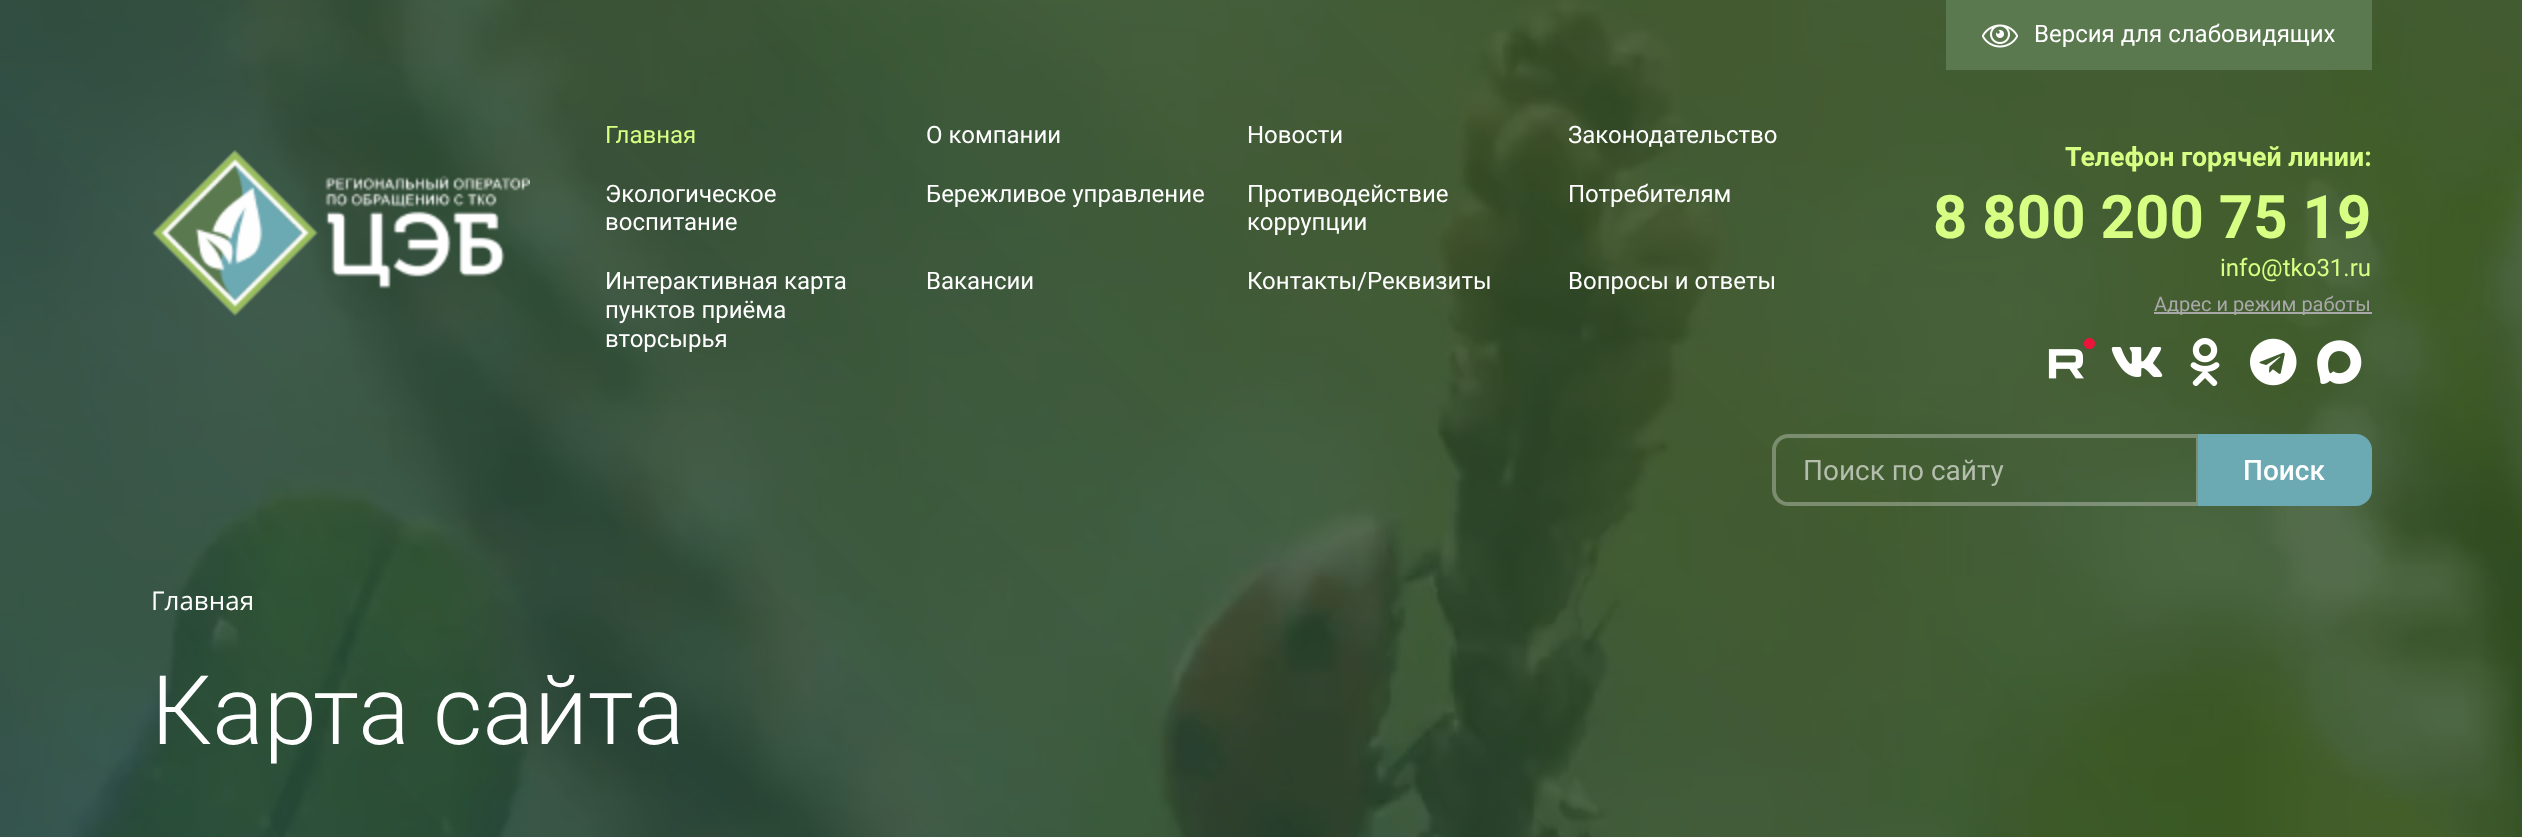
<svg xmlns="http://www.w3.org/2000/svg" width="2522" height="837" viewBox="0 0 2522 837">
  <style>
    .t1 { font: 24px Roboto; fill: #fff; }
    .t2 { font: 24px Roboto; fill: #d7ff83; }
    .t3 { font: bold 26.75px Roboto; fill: #d7ff83; }
    .t4 { font: bold 60px Roboto; fill: #d7ff83; }
    .t5 { font: 20px Roboto; fill: #a8a8a8; }
    .t6 { font: 28px Roboto; fill: #b4bead; }
    .t7 { font: 500 28px Roboto; fill: #fff; }
    .t8 { font: 26px Open Sans; fill: #fff; }
    .t9 { font: 300 96px Roboto; fill: #fff; }
  </style>
  <rect width="100%" height="100%" fill="#fff"/>
  <image x="0" y="0" width="2522" height="837" href="images/1.png"/>
  <rect x="1946" y="0" width="426" height="70" fill="#5a794f"/>
  <image x="1982" y="24" width="36" height="24" href="images/2.png"/>
  <text x="2034" y="42" class="t1">Версия для слабовидящих</text>
  <image x="152" y="150" width="378" height="166" href="images/3.png"/>
  <text x="605" y="143" class="t2">Главная</text>
  <text x="926" y="143" class="t1">О компании</text>
  <text x="1247" y="143" class="t1">Новости</text>
  <text x="1568" y="143" class="t1">Законодательство</text>
  <text x="605" y="202" class="t1">Экологическое</text>
  <text x="605" y="230" class="t1">воспитание</text>
  <text x="926" y="202" class="t1">Бережливое управление</text>
  <text x="1247" y="202" class="t1">Противодействие</text>
  <text x="1247" y="230" class="t1">коррупции</text>
  <text x="1568" y="202" class="t1">Потребителям</text>
  <text x="605" y="289" class="t1">Интерактивная карта</text>
  <text x="605" y="318" class="t1">пунктов приёма</text>
  <text x="605" y="347" class="t1">вторсырья</text>
  <text x="926" y="289" class="t1">Вакансии</text>
  <text x="1247" y="289" class="t1">Контакты/Реквизиты</text>
  <text x="1568" y="289" class="t1">Вопросы и ответы</text>
  <text x="2065" y="166" class="t3">Телефон горячей линии:</text>
  <text x="1933" y="238" class="t4">8 800 200 75 19</text>
  <text x="2220" y="276" class="t2">info@tko31.ru</text>
  <rect x="2154" y="312" width="218" height="2" fill="#a8a8a8"/>
  <text x="2154" y="311" class="t5">Адрес и режим работы</text>
  <image x="2048" y="338" width="47" height="41" href="images/4.png"/>
  <image x="2111" y="347" width="52" height="30" href="images/5.png"/>
  <image x="2190" y="338" width="30" height="48" href="images/6.png"/>
  <image x="2250" y="338" width="47" height="48" href="images/7.png"/>
  <image x="2317" y="340" width="45" height="44" href="images/8.png"/>
  <path d="M1788 436H2198V504H1788C1780.5 504 1774 497.5 1774 490V450C1774 442.5 1780.5 436 1788 436Z" fill="none" stroke="#ffffff4d" stroke-width="4"/>
  <text x="1803" y="480" class="t6">Поиск по сайту</text>
  <path d="M2201 437H2356C2363 437 2369 443 2369 450V490C2369 497 2363 503 2356 503H2201Z" fill="#6ba9b3" stroke="#6ba9b3" stroke-width="6"/>
  <text x="2243" y="480" class="t7">Поиск</text>
  <text x="151" y="610" class="t8">Главная</text>
  <text x="151" y="744" class="t9">Карта сайта</text>
</svg>
